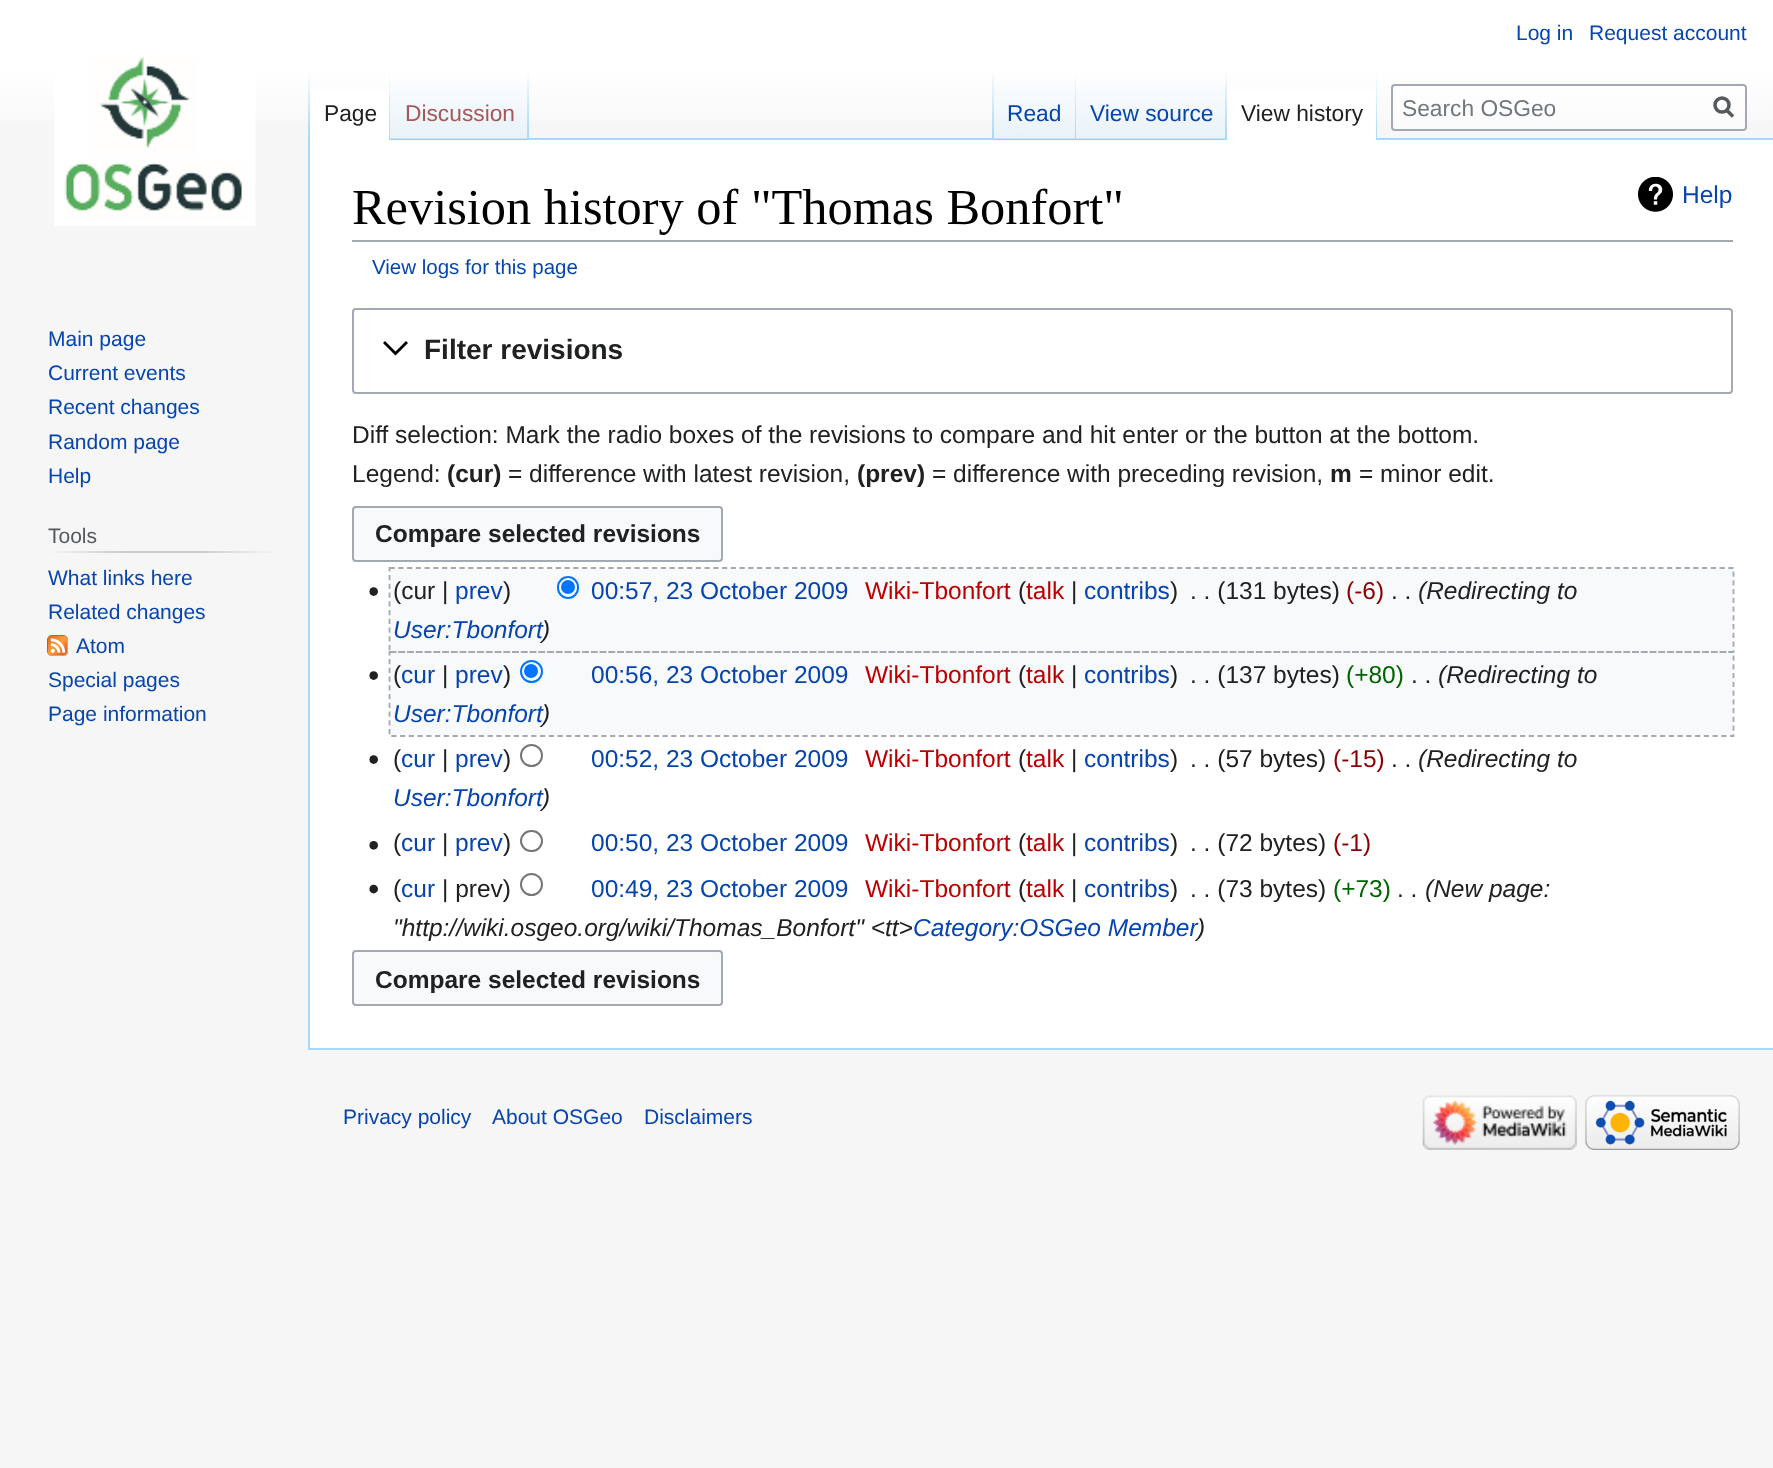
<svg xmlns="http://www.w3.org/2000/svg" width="1773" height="1468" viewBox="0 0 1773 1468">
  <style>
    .t1 { font: 21px Liberation Sans; fill: #0645ad; }
    .t2 { font: 22.75px Liberation Sans; fill: #202122; }
    .t3 { font: 22.75px Liberation Sans; fill: #a55858; }
    .t4 { font: 22.75px Liberation Sans; fill: #0645ad; }
    .t5 { font: 22.75px Liberation Sans; fill: #72777d; }
    .t6 { font: 21px Liberation Sans; fill: #54595d; }
    .t7 { font: 50.4px Liberation Serif; fill: #000; }
    .t8 { font: 24.5px Liberation Sans; fill: #0645ad; }
    .t9 { font: 20.5px Liberation Sans; fill: #0645ad; }
    .t10 { font: bold 28px Liberation Sans; fill: #202122; }
    .t11 { font: 24.5px Liberation Sans; fill: #202122; }
    .t12 { font: bold 24.5px Liberation Sans; fill: #202122; }
    .t13 { font: 24.5px Liberation Sans; fill: #ba0000; }
    .t14 { font: 24.5px Liberation Sans; fill: #8b0000; }
    .t15 { font: italic 24.5px Liberation Sans; fill: #202122; }
    .t16 { font: italic 24.5px Liberation Sans; fill: #0645ad; }
    .t17 { font: 24.5px Liberation Sans; fill: #006400; }
  </style>
  <defs>
    <linearGradient id="g1" gradientUnits="userSpaceOnUse" x1="887" y1="0" x2="887" y2="140"><stop offset="0.5" stop-color="#fff"/><stop offset="1" stop-color="#f6f6f6"/></linearGradient>
    <linearGradient id="g2" gradientUnits="userSpaceOnUse" x1="309" y1="70" x2="309" y2="140"><stop offset="0" stop-color="#a7d7f9" stop-opacity="0"/><stop offset="1" stop-color="#a7d7f9"/></linearGradient>
    <linearGradient id="g3" gradientUnits="userSpaceOnUse" x1="389" y1="70" x2="389" y2="140"><stop offset="0" stop-color="#fff"/><stop offset="1" stop-color="#a7d7f9"/></linearGradient>
    <linearGradient id="g4" gradientUnits="userSpaceOnUse" x1="459" y1="140" x2="459" y2="70"><stop offset="0" stop-color="#77c1f6"/><stop offset="0.03" stop-color="#e8f2f8"/><stop offset="1" stop-color="#fff"/></linearGradient>
    <linearGradient id="g5" gradientUnits="userSpaceOnUse" x1="528" y1="70" x2="528" y2="140"><stop offset="0" stop-color="#a7d7f9" stop-opacity="0"/><stop offset="1" stop-color="#a7d7f9"/></linearGradient>
    <linearGradient id="g6" gradientUnits="userSpaceOnUse" x1="993" y1="70" x2="993" y2="140"><stop offset="0" stop-color="#a7d7f9" stop-opacity="0"/><stop offset="1" stop-color="#a7d7f9"/></linearGradient>
    <linearGradient id="g7" gradientUnits="userSpaceOnUse" x1="1035" y1="140" x2="1035" y2="70"><stop offset="0" stop-color="#77c1f6"/><stop offset="0.03" stop-color="#e8f2f8"/><stop offset="1" stop-color="#fff"/></linearGradient>
    <linearGradient id="g8" gradientUnits="userSpaceOnUse" x1="1075" y1="70" x2="1075" y2="140"><stop offset="0" stop-color="#a7d7f9" stop-opacity="0"/><stop offset="1" stop-color="#a7d7f9"/></linearGradient>
    <linearGradient id="g9" gradientUnits="userSpaceOnUse" x1="1152" y1="140" x2="1152" y2="70"><stop offset="0" stop-color="#77c1f6"/><stop offset="0.03" stop-color="#e8f2f8"/><stop offset="1" stop-color="#fff"/></linearGradient>
    <linearGradient id="g10" gradientUnits="userSpaceOnUse" x1="1226" y1="70" x2="1226" y2="140"><stop offset="0" stop-color="#a7d7f9" stop-opacity="0"/><stop offset="1" stop-color="#a7d7f9"/></linearGradient>
    <linearGradient id="g11" gradientUnits="userSpaceOnUse" x1="1376" y1="70" x2="1376" y2="140"><stop offset="0" stop-color="#fff"/><stop offset="1" stop-color="#a7d7f9"/></linearGradient>
    <linearGradient id="g12" gradientUnits="userSpaceOnUse" x1="47" y1="552" x2="277" y2="552"><stop offset="0" stop-color="#f6f6f6"/><stop offset="0.33" stop-color="#c8ccd1"/><stop offset="0.66" stop-color="#c8ccd1"/><stop offset="1" stop-color="#f6f6f6"/></linearGradient>
  </defs>
  <rect width="100%" height="100%" fill="#f6f6f6"/>
  <rect x="0" y="0" width="1773" height="121" fill="url(#g1)"/>
  <text x="1516" y="40" class="t1">Log in</text>
  <text x="1589" y="40" class="t1">Request account</text>
  <rect x="308" y="1048" width="1465" height="2" fill="#a7d7f9"/>
  <rect x="308" y="138" width="2" height="912" fill="#a7d7f9"/>
  <rect x="308" y="70" width="2" height="70" fill="url(#g2)"/>
  <rect x="310" y="89" width="79" height="51" fill="#fff"/>
  <rect x="389" y="70" width="1" height="70" fill="url(#g3)"/>
  <text x="324" y="121" class="t2">Page</text>
  <rect x="390" y="80" width="139" height="60" fill="url(#g4)"/>
  <rect x="527" y="70" width="2" height="70" fill="url(#g5)"/>
  <text x="405" y="121" class="t3">Discussion</text>
  <rect x="529" y="138" width="1244" height="2" fill="#a7d7f9"/>
  <rect x="992" y="70" width="2" height="70" fill="url(#g6)"/>
  <rect x="994" y="80" width="82" height="60" fill="url(#g7)"/>
  <rect x="1075" y="70" width="1" height="70" fill="url(#g8)"/>
  <text x="1007" y="121" class="t4">Read</text>
  <rect x="1076" y="80" width="151" height="60" fill="url(#g9)"/>
  <rect x="1225" y="70" width="2" height="70" fill="url(#g10)"/>
  <text x="1090" y="121" class="t4">View source</text>
  <rect x="1227" y="89" width="149" height="51" fill="#fff"/>
  <rect x="1376" y="70" width="1" height="70" fill="url(#g11)"/>
  <text x="1241" y="121" class="t2">View history</text>
  <rect x="1392" y="85" width="354" height="45" rx="3" fill="#ffffff80" stroke="#a2a9b1" stroke-width="2"/>
  <text x="1402" y="116" class="t5">Search OSGeo</text>
  <path d="M1733 116.5L1726 109.5" fill="none" stroke="#54595d" stroke-width="3.5"/>
  <circle cx="1722" cy="105" r="7" fill="none" stroke="#54595d" stroke-width="3.5"/>
  <image x="54" y="56" width="202" height="170" href="images/1.png"/>
  <text x="48" y="346" class="t1">Main page</text>
  <text x="48" y="380" class="t1">Current events</text>
  <text x="48" y="414" class="t1">Recent changes</text>
  <text x="48" y="449" class="t1">Random page</text>
  <text x="48" y="483" class="t1">Help</text>
  <rect x="47" y="551" width="230" height="2" fill="url(#g12)"/>
  <text x="48" y="543" class="t6">Tools</text>
  <text x="48" y="585" class="t1">What links here</text>
  <text x="48" y="619" class="t1">Related changes</text>
  <image x="47" y="635" width="21" height="21" href="images/2.png"/>
  <text x="76" y="653" class="t1">Atom</text>
  <text x="48" y="687" class="t1">Special pages</text>
  <text x="48" y="721" class="t1">Page information</text>
  <rect x="310" y="140" width="1463" height="908" fill="#fff"/>
  <rect x="352" y="240" width="1381" height="2" fill="#a2a9b1"/>
  <text x="352" y="224" class="t7">Revision history of "Thomas Bonfort"</text>
  <image x="1638" y="177" width="35" height="35" href="images/3.png"/>
  <text x="1682" y="203" class="t8">Help</text>
  <text x="372" y="274" class="t9">View logs for this page</text>
  <rect x="353" y="309" width="1379" height="84" rx="3" fill="none" stroke="#a2a9b1" stroke-width="2"/>
  <path d="M406 341L395.5 351.5L385 341L383 343L395.5 355.5L408 343Z" fill="#000"/>
  <text x="424" y="359" class="t10">Filter revisions</text>
  <text x="352" y="443" class="t11">Diff selection: Mark the radio boxes of the revisions to compare and hit enter or the button at the bottom.</text>
  <text x="352" y="482" class="t11">Legend:</text>
  <text x="447" y="482" class="t12">(cur)</text>
  <text x="508" y="482" class="t11">= difference with latest revision,</text>
  <text x="857" y="482" class="t12">(prev)</text>
  <text x="932" y="482" class="t11">= difference with preceding revision,</text>
  <text x="1330" y="482" class="t12">m</text>
  <text x="1359" y="482" class="t11">= minor edit.</text>
  <rect x="353" y="507" width="369" height="54" rx="3" fill="#f8f9fa" stroke="#a2a9b1" stroke-width="2"/>
  <text x="375" y="542" class="t12">Compare selected revisions</text>
  <rect x="390" y="569" width="1343" height="82" fill="#f8f9fa"/>
  <image x="369" y="587" width="9" height="9" href="images/4.png"/>
  <text x="393" y="599" class="t11">(cur |</text>
  <text x="455" y="599" class="t8">prev</text>
  <text x="503" y="599" class="t11">)</text>
  <rect x="558" y="577" width="20" height="21" rx="10" fill="#fff" stroke="#0075ff" stroke-width="2"/>
  <circle cx="568" cy="587" r="7" fill="#0075ff"/>
  <text x="591" y="599" class="t8">00:57, 23 October 2009</text>
  <text x="865" y="599" class="t13">Wiki-Tbonfort</text>
  <text x="1018" y="599" class="t11">(</text>
  <text x="1026" y="599" class="t13">talk</text>
  <text x="1071" y="599" class="t11">|</text>
  <text x="1084" y="599" class="t8">contribs</text>
  <text x="1170" y="599" class="t11">)</text>
  <text x="1190" y="599" class="t11">. . (131 bytes)</text>
  <text x="1346" y="599" class="t14">(-6)</text>
  <text x="1391" y="599" class="t11">. .</text>
  <text x="1418" y="599" class="t15">(Redirecting to</text>
  <text x="393" y="638" class="t16">User:Tbonfort</text>
  <text x="542" y="638" class="t15">)</text>
  <path d="M389.5 568H1733.5V652H389.5Z" fill="none" stroke="#a2a9b1" stroke-width="1.8" stroke-dasharray="5.25 3.5"/>
  <rect x="390" y="653" width="1343" height="82" fill="#f8f9fa"/>
  <image x="369" y="671" width="9" height="9" href="images/4.png"/>
  <text x="393" y="683" class="t11">(</text>
  <text x="401" y="683" class="t8">cur</text>
  <text x="442" y="683" class="t11">|</text>
  <text x="455" y="683" class="t8">prev</text>
  <text x="503" y="683" class="t11">)</text>
  <circle cx="531.5" cy="671.5" r="10.5" fill="#fff" stroke="#0075ff" stroke-width="2"/>
  <circle cx="531" cy="671" r="7" fill="#0075ff"/>
  <text x="591" y="683" class="t8">00:56, 23 October 2009</text>
  <text x="865" y="683" class="t13">Wiki-Tbonfort</text>
  <text x="1018" y="683" class="t11">(</text>
  <text x="1026" y="683" class="t13">talk</text>
  <text x="1071" y="683" class="t11">|</text>
  <text x="1084" y="683" class="t8">contribs</text>
  <text x="1170" y="683" class="t11">)</text>
  <text x="1190" y="683" class="t11">. . (137 bytes)</text>
  <text x="1346" y="683" class="t17">(+80)</text>
  <text x="1411" y="683" class="t11">. .</text>
  <text x="1438" y="683" class="t15">(Redirecting to</text>
  <text x="393" y="722" class="t16">User:Tbonfort</text>
  <text x="542" y="722" class="t15">)</text>
  <path d="M389.5 652H1733.5V736H389.5Z" fill="none" stroke="#a2a9b1" stroke-width="1.8" stroke-dasharray="5.25 3.5"/>
  <image x="369" y="755" width="9" height="9" href="images/4.png"/>
  <text x="393" y="767" class="t11">(</text>
  <text x="401" y="767" class="t8">cur</text>
  <text x="442" y="767" class="t11">|</text>
  <text x="455" y="767" class="t8">prev</text>
  <text x="503" y="767" class="t11">)</text>
  <circle cx="531.5" cy="755.5" r="10.5" fill="none" stroke="#767676" stroke-width="2"/>
  <text x="591" y="767" class="t8">00:52, 23 October 2009</text>
  <text x="865" y="767" class="t13">Wiki-Tbonfort</text>
  <text x="1018" y="767" class="t11">(</text>
  <text x="1026" y="767" class="t13">talk</text>
  <text x="1071" y="767" class="t11">|</text>
  <text x="1084" y="767" class="t8">contribs</text>
  <text x="1170" y="767" class="t11">)</text>
  <text x="1190" y="767" class="t11">. . (57 bytes)</text>
  <text x="1333" y="767" class="t14">(-15)</text>
  <text x="1391" y="767" class="t11">. .</text>
  <text x="1418" y="767" class="t15">(Redirecting to</text>
  <text x="393" y="806" class="t16">User:Tbonfort</text>
  <text x="542" y="806" class="t15">)</text>
  <image x="369" y="841" width="9" height="9" href="images/5.png"/>
  <text x="393" y="851" class="t11">(</text>
  <text x="401" y="851" class="t8">cur</text>
  <text x="442" y="851" class="t11">|</text>
  <text x="455" y="851" class="t8">prev</text>
  <text x="503" y="851" class="t11">)</text>
  <rect x="521" y="831" width="21" height="20" rx="10" fill="none" stroke="#767676" stroke-width="2"/>
  <text x="591" y="851" class="t8">00:50, 23 October 2009</text>
  <text x="865" y="851" class="t13">Wiki-Tbonfort</text>
  <text x="1018" y="851" class="t11">(</text>
  <text x="1026" y="851" class="t13">talk</text>
  <text x="1071" y="851" class="t11">|</text>
  <text x="1084" y="851" class="t8">contribs</text>
  <text x="1170" y="851" class="t11">)</text>
  <text x="1190" y="851" class="t11">. . (72 bytes)</text>
  <text x="1333" y="851" class="t14">(-1)</text>
  <image x="369" y="884" width="9" height="10" href="images/6.png"/>
  <text x="393" y="897" class="t11">(</text>
  <text x="401" y="897" class="t8">cur</text>
  <text x="442" y="897" class="t11">| prev)</text>
  <circle cx="531.5" cy="884.5" r="10.5" fill="none" stroke="#767676" stroke-width="2"/>
  <text x="591" y="897" class="t8">00:49, 23 October 2009</text>
  <text x="865" y="897" class="t13">Wiki-Tbonfort</text>
  <text x="1018" y="897" class="t11">(</text>
  <text x="1026" y="897" class="t13">talk</text>
  <text x="1071" y="897" class="t11">|</text>
  <text x="1084" y="897" class="t8">contribs</text>
  <text x="1170" y="897" class="t11">)</text>
  <text x="1190" y="897" class="t11">. . (73 bytes)</text>
  <text x="1333" y="897" class="t17">(+73)</text>
  <text x="1397" y="897" class="t11">. .</text>
  <text x="1425" y="897" class="t15">(New page:</text>
  <text x="393" y="936" class="t15">"http://wiki.osgeo.org/wiki/Thomas_Bonfort" &lt;tt&gt;</text>
  <text x="913" y="936" class="t16">Category:OSGeo Member</text>
  <text x="1197" y="936" class="t15">)</text>
  <rect x="353" y="951" width="369" height="54" rx="3" fill="#f8f9fa" stroke="#a2a9b1" stroke-width="2"/>
  <text x="375" y="988" class="t12">Compare selected revisions</text>
  <text x="343" y="1124" class="t1">Privacy policy</text>
  <text x="492" y="1124" class="t1">About OSGeo</text>
  <text x="644" y="1124" class="t1">Disclaimers</text>
  <image x="1422" y="1095" width="155" height="55" href="images/7.png"/>
  <image x="1585" y="1095" width="155" height="55" href="images/8.png"/>
</svg>
